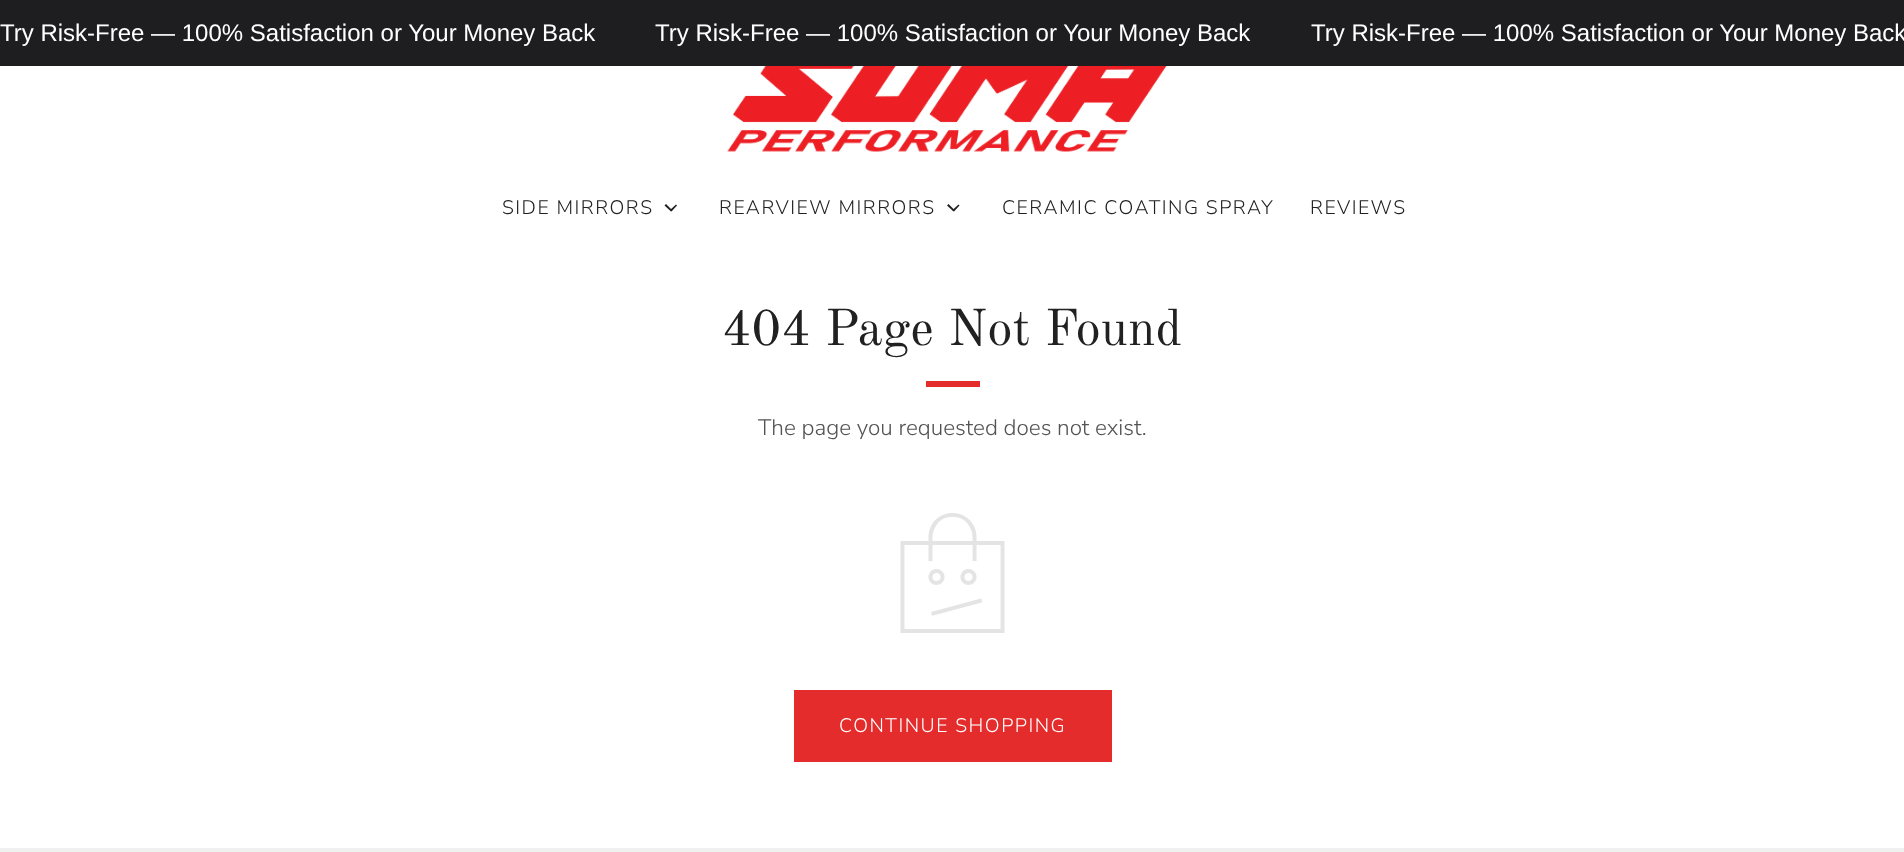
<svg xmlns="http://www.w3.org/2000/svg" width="1904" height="852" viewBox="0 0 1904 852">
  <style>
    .t1 { font: 24px Liberation Sans; fill: #fff; }
    .t2 { font: 300 19.5px Nunito Sans; letter-spacing: 1.5px; fill: #212121; }
    .t3 { font: 51px Old Standard TT; fill: #212121; }
    .t4 { font: 300 22.5px Nunito Sans; fill: #535353; }
    .t5 { font: 300 19.5px Nunito Sans; letter-spacing: 1.5px; fill: #fff; }
  </style>
  <rect width="100%" height="100%" fill="#fff"/>
  <rect x="0" y="0" width="1904" height="66" fill="#1e1e20"/>
  <text x="0" y="41" class="t1">Try Risk-Free — 100% Satisfaction or Your Money Back</text>
  <text x="655" y="41" class="t1">Try Risk-Free — 100% Satisfaction or Your Money Back</text>
  <text x="1311" y="41" class="t1">Try Risk-Free — 100% Satisfaction or Your Money Back</text>
  <image x="727" y="66" width="440" height="86" href="images/1.png"/>
  <text x="502" y="214" class="t2">SIDE MIRRORS</text>
  <path d="M676 204.5L677 205.5L671.5 211.5L670 210Z" fill="#212121"/>
  <path d="M666 204L672 210L671 211.5L664.5 205.5Z" fill="#212121"/>
  <text x="719" y="214" class="t2">REARVIEW MIRRORS</text>
  <path d="M958.5 204.5L959.5 205.5L954 211.5L952.5 210Z" fill="#212121"/>
  <path d="M948.5 204L954.5 210L953.5 211.5L947 205.5Z" fill="#212121"/>
  <text x="1002" y="214" class="t2">CERAMIC COATING SPRAY</text>
  <text x="1310" y="214" class="t2">REVIEWS</text>
  <text x="722" y="345" class="t3">404 Page Not Found</text>
  <rect x="926" y="381" width="54" height="6" fill="#e32c2b"/>
  <text x="758" y="435" class="t4">The page you requested does not exist.</text>
  <image x="900" y="513" width="105" height="120" href="images/2.png"/>
  <rect x="794" y="690" width="318" height="72" fill="#e32c2b"/>
  <text x="839" y="732" class="t5">CONTINUE SHOPPING</text>
  <rect x="0" y="848" width="1904" height="4" fill="#f0f0f0"/>
</svg>
